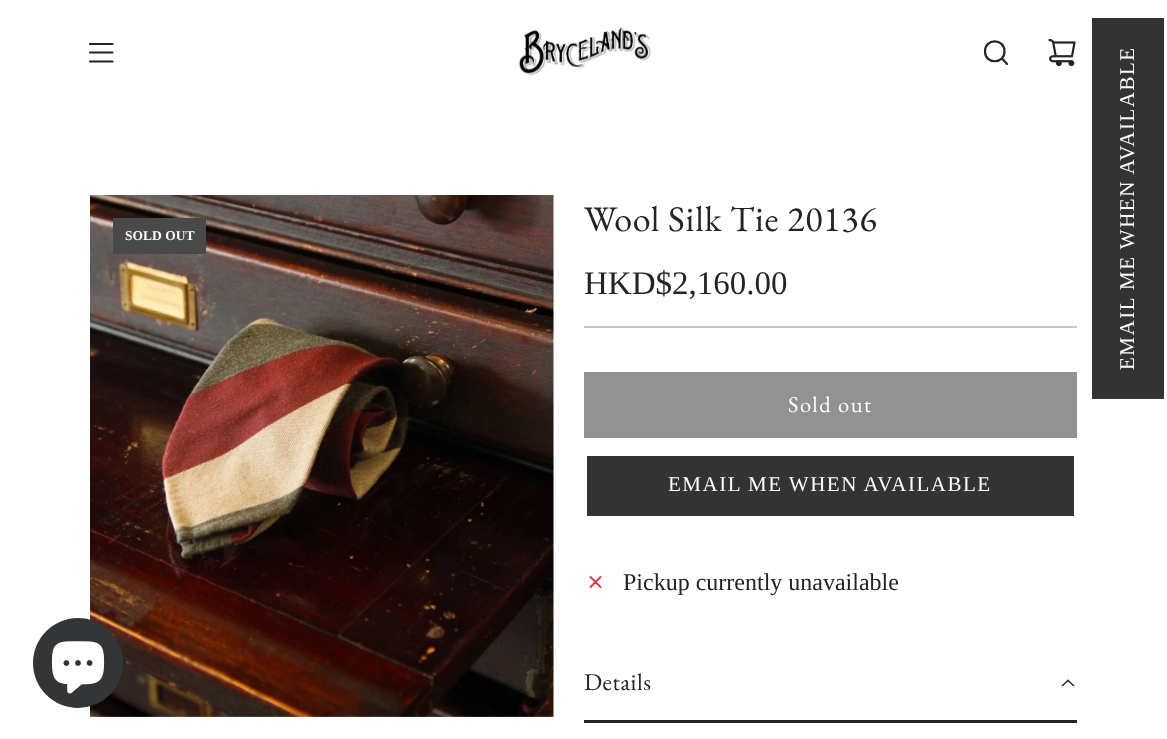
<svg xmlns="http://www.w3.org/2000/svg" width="1167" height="739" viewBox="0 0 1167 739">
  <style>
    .t1 { font: bold 13.5px Liberation Serif; fill: #fff; }
    .t2 { font: 36px EB Garamond; letter-spacing: 0.75px; fill: #242424; }
    .t3 { font: 33px Liberation Serif; fill: #242424; }
    .t4 { font: 22.5px EB Garamond; letter-spacing: 1.5px; fill: #fff; }
    .t5 { font: 21px Liberation Serif; letter-spacing: 1.5px; fill: #fff; }
    .t6 { font: 24px Liberation Serif; fill: #242424; }
    .t7 { font: 24px EB Garamond; letter-spacing: 0.5px; fill: #242424; }
  </style>
  <rect width="100%" height="100%" fill="#fff"/>
  <image x="90" y="195" width="464" height="522" href="images/4.png"/>
  <circle cx="78" cy="663" r="45" fill="#343536"/>
  <image x="51" y="641" width="54" height="53" href="images/1.png"/>
  <path d="M90 44H112.5M90 52.5H112.5M90 61.5H112.5" fill="none" stroke="#242424" stroke-width="2.2" stroke-linecap="round" stroke-linejoin="round"/>
  <image x="519" y="27" width="132" height="49" href="images/2.png"/>
  <path d="M1002.5 59L1007 64M985 51.5C985 64.5 1004.5 64.5 1004.5 51.5C1004.5 38 985 38 985 51.5Z" fill="none" stroke="#242424" stroke-width="2.2" stroke-linecap="round" stroke-linejoin="round"/>
  <image x="1048" y="38" width="28" height="29" href="images/3.png"/>
  <rect x="113" y="218" width="93" height="36" fill="#494949"/>
  <text x="125" y="240" class="t1">SOLD OUT</text>
  <text x="584" y="231" class="t2">Wool Silk Tie 20136</text>
  <text x="584" y="294" class="t3">HKD$2,160.00</text>
  <rect x="584" y="326" width="493" height="2" fill="#c8c8c8"/>
  <rect x="584" y="372" width="493" height="66" fill="#929292"/>
  <text x="788" y="412" class="t4">Sold out</text>
  <rect x="587" y="456" width="487" height="60" fill="#333"/>
  <text x="668" y="491" class="t5">EMAIL ME WHEN AVAILABLE</text>
  <path d="M590.5 587L595.5 582L600.5 587M600.5 577L595.5 582L590.5 577" fill="none" stroke="#dc3545" stroke-width="1.8" stroke-linecap="round" stroke-linejoin="round"/>
  <text x="623" y="590" class="t6">Pickup currently unavailable</text>
  <rect x="584" y="720" width="493" height="3" fill="#242424"/>
  <text x="584" y="690" class="t7">Details</text>
  <path d="M1062.5 686.5L1061.5 685.5L1068 679.5L1069 680.5Z" fill="#242424"/>
  <path d="M1073.5 686.5L1067 680.5L1068 679.5L1074.5 685.5Z" fill="#242424"/>
  <rect x="1092" y="18" width="72" height="381" fill="#333"/>
  <text x="1134" y="370" transform="rotate(-90 1134 370)" class="t5">EMAIL ME WHEN AVAILABLE</text>
</svg>
